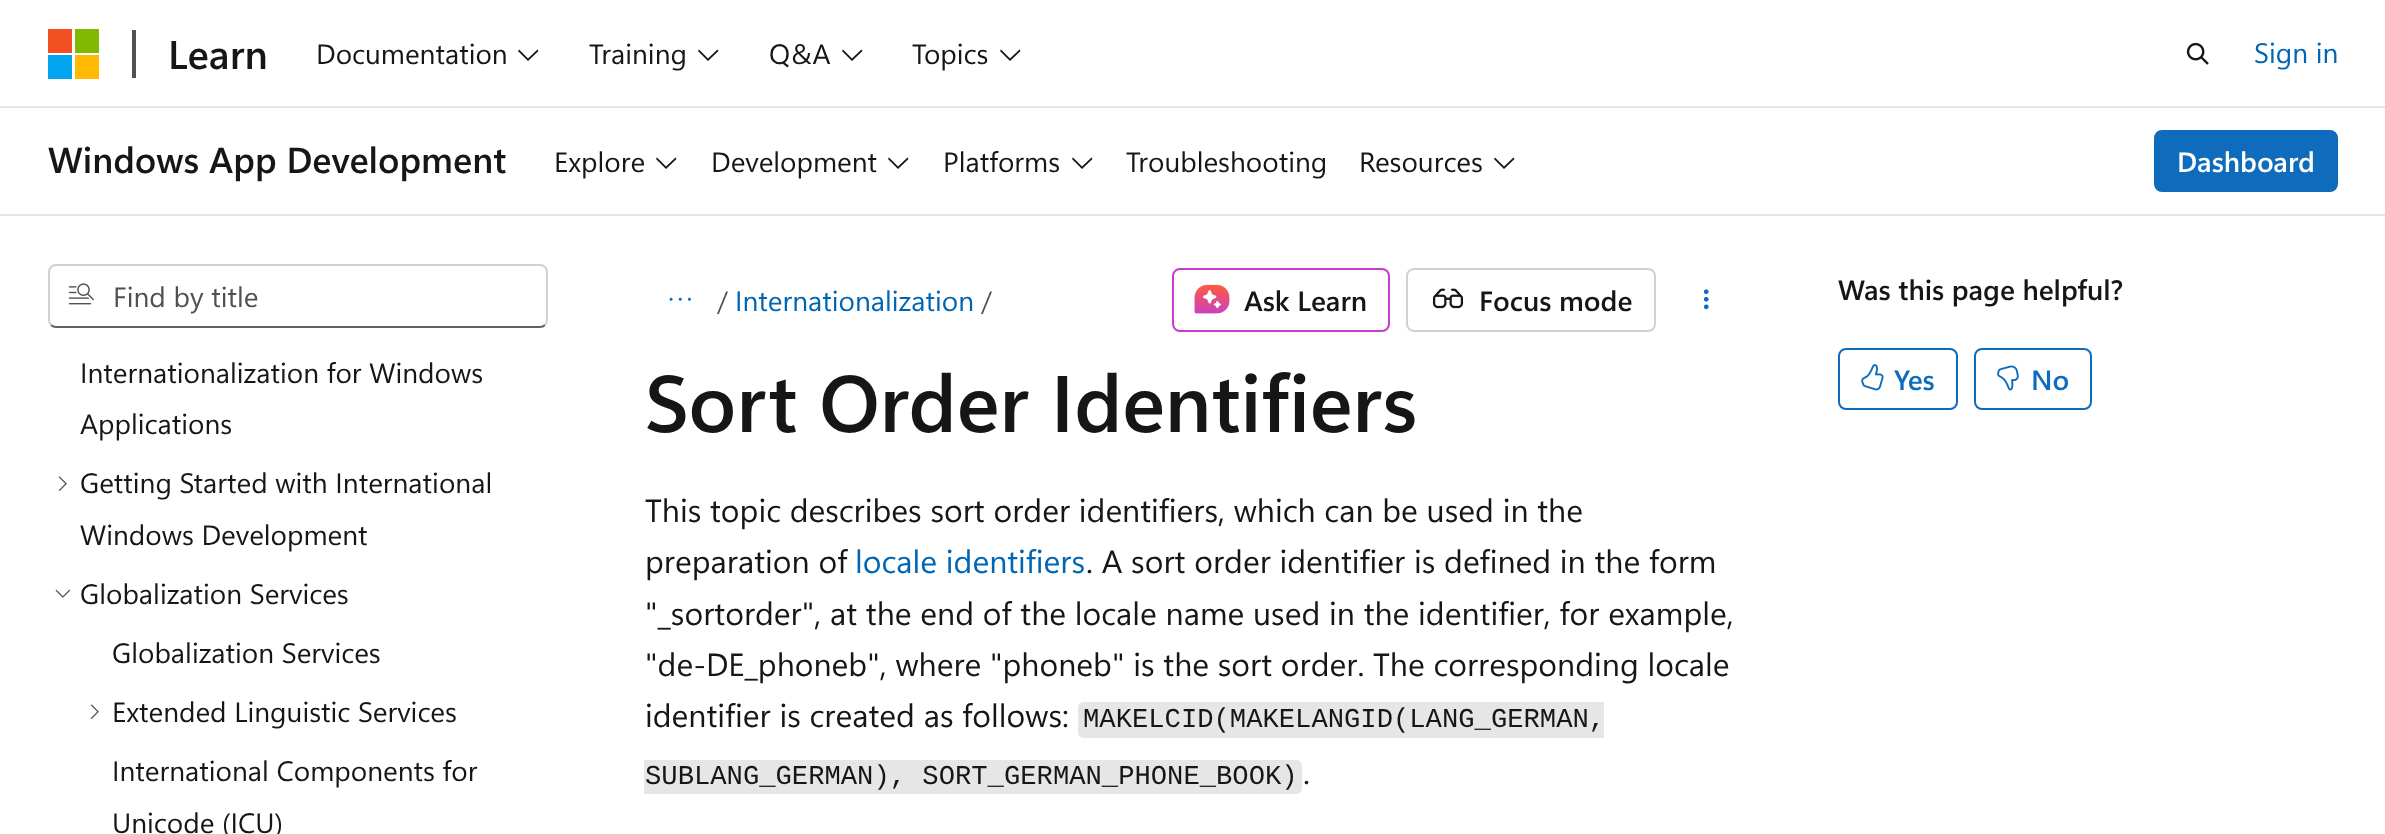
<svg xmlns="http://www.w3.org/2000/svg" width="2385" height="834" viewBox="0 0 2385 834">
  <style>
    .t1 { font: 600 40px Segoe UI; fill: #161616; }
    .t2 { font: 28px Segoe UI; fill: #161616; }
    .t3 { font: 28px Segoe UI; fill: #0065b3; }
    .t4 { font: 600 36px Segoe UI; fill: #161616; }
    .t5 { font: 600 28px Segoe UI; fill: #fff; }
    .t6 { font: 28px Segoe UI; fill: #505050; }
    .t7 { font: 600 28px Segoe UI; fill: #161616; }
    .t8 { font: 600 80px Segoe UI; fill: #161616; }
    .t9 { font: 32px Segoe UI; fill: #161616; }
    .t10 { font: 32px Segoe UI; fill: #0065b3; }
    .t11 { font: 27.2px Liberation Mono; fill: #161616; }
    .t12 { font: 600 28px Segoe UI; fill: #0f6cbd; }
  </style>
  <rect width="100%" height="100%" fill="#fff"/>
  <rect x="0" y="106" width="2385" height="2" fill="#e6e6e6"/>
  <rect x="48" y="29" width="24" height="24" fill="#f25022"/>
  <rect x="75" y="29" width="24" height="24" fill="#7fba00"/>
  <rect x="48" y="55" width="24" height="24" fill="#00a4ef"/>
  <rect x="75" y="55" width="24" height="24" fill="#ffb900"/>
  <rect x="132" y="30" width="4" height="48" fill="#505050"/>
  <text x="168" y="69" class="t1">Learn</text>
  <text x="316" y="64" class="t2">Documentation</text>
  <path d="M528 61L518 51L519 49.5L528 58.5L537.5 49.5L538.5 51Z" fill="#161616"/>
  <text x="589" y="64" class="t2">Training</text>
  <path d="M708 61L698 51L699 49.5L708 58.5L717.5 49.5L718.5 51Z" fill="#161616"/>
  <text x="769" y="64" class="t2">Q&amp;A</text>
  <path d="M852 61L842 51L843 49.5L852 58.5L861.5 49.5L862.5 51Z" fill="#161616"/>
  <text x="912" y="64" class="t2">Topics</text>
  <path d="M1010 61L1000 51L1001 49.5L1010 58.5L1019.5 49.5L1020.5 51Z" fill="#161616"/>
  <image x="2186" y="42" width="23" height="23" href="images/1.png"/>
  <text x="2254" y="63" class="t3">Sign in</text>
  <rect x="0" y="214" width="2385" height="2" fill="#e6e6e6"/>
  <text x="48" y="173" class="t4">Windows App Development</text>
  <text x="554" y="172" class="t2">Explore</text>
  <path d="M666 169L656 159L657 157.5L666 166.5L675.5 157.5L676.5 159Z" fill="#161616"/>
  <text x="711" y="172" class="t2">Development</text>
  <path d="M898 169L888 159L889 157.5L898 166.5L907.5 157.5L908.5 159Z" fill="#161616"/>
  <text x="943" y="172" class="t2">Platforms</text>
  <path d="M1082 169L1072 159L1073 157.5L1082 166.5L1091.5 157.5L1092.5 159Z" fill="#161616"/>
  <text x="1126" y="172" class="t2">Troubleshooting</text>
  <text x="1359" y="172" class="t2">Resources</text>
  <path d="M1504 169L1494 159L1495 157.5L1504 166.5L1513.5 157.5L1514.5 159Z" fill="#161616"/>
  <rect x="2155" y="131" width="182" height="60" rx="7" fill="#0f6cbd" stroke="#0f6cbd" stroke-width="2"/>
  <text x="2177" y="172" class="t5">Dashboard</text>
  <path d="M545 325C543.5 326.5 542 327 540 327H56C54 327 52.5 326.5 51 325" fill="none" stroke="#616161" stroke-width="2"/>
  <path d="M51 325C49.5 323.5 49 322 49 320V272C49 270 49.5 268.5 51 267C52.5 265.5 54 265 56 265H540C542 265 543.5 265.5 545 267C546.5 268.5 547 270 547 272V320C547 322 546.5 323.5 545 325" fill="none" stroke="#d1d1d1" stroke-width="2"/>
  <image x="68" y="283" width="26" height="22" href="images/2.png"/>
  <text x="113" y="307" class="t6">Find by title</text>
  <text x="80" y="383" class="t2">Internationalization for Windows</text>
  <text x="80" y="434" class="t2">Applications</text>
  <image x="58" y="476" width="9" height="15" href="images/3.png"/>
  <text x="80" y="493" class="t2">Getting Started with International</text>
  <text x="80" y="545" class="t2">Windows Development</text>
  <image x="55" y="589" width="16" height="9" href="images/4.png"/>
  <text x="80" y="604" class="t2">Globalization Services</text>
  <text x="112" y="663" class="t2">Globalization Services</text>
  <image x="90" y="704" width="9" height="15" href="images/3.png"/>
  <text x="112" y="722" class="t2">Extended Linguistic Services</text>
  <text x="112" y="781" class="t2">International Components for</text>
  <text x="112" y="833" class="t2">Unicode (ICU)</text>
  <image x="669" y="297" width="22" height="4" href="images/5.png"/>
  <text x="717" y="311" class="t6">/</text>
  <text x="735" y="311" class="t3">Internationalization</text>
  <text x="981" y="311" class="t6">/</text>
  <rect x="1173" y="269" width="216" height="62" rx="7" fill="none" stroke="#c73ecc" stroke-width="2"/>
  <image x="1194" y="284" width="36" height="30" href="images/6.png"/>
  <text x="1244" y="311" class="t7">Ask Learn</text>
  <rect x="1407" y="269" width="248" height="62" rx="7" fill="none" stroke="#d1d1d1" stroke-width="2"/>
  <image x="1432" y="288" width="32" height="21" href="images/7.png"/>
  <text x="1479" y="311" class="t7">Focus mode</text>
  <image x="1703" y="289" width="6" height="21" href="images/8.png"/>
  <text x="645" y="432" class="t8">Sort Order Identifiers</text>
  <text x="645" y="522" class="t9">This topic describes sort order identifiers, which can be used in the</text>
  <text x="645" y="573" class="t9">preparation of</text>
  <text x="855" y="573" class="t10">locale identifiers</text>
  <text x="1086" y="573" class="t9">. A sort order identifier is defined in the form</text>
  <text x="645" y="625" class="t9">"_sortorder", at the end of the locale name used in the identifier, for example,</text>
  <text x="645" y="676" class="t9">"de-DE_phoneb", where "phoneb" is the sort order. The corresponding locale</text>
  <text x="645" y="727" class="t9">identifier is created as follows:</text>
  <path d="M1084 702H1604V738H1084C1080.5 738 1078 735.5 1078 732V708C1078 704.5 1080.5 702 1084 702Z" fill="#e6e6e6"/>
  <text x="1083" y="727" class="t11">MAKELCID(MAKELANGID(LANG_GERMAN,</text>
  <path d="M644 760H1296C1299.5 760 1302 762.5 1302 766V788C1302 791.5 1299.5 794 1296 794H644Z" fill="#e6e6e6"/>
  <text x="645" y="784" class="t11">SUBLANG_GERMAN), SORT_GERMAN_PHONE_BOOK)</text>
  <text x="1303" y="784" class="t9">.</text>
  <text x="1838" y="300" class="t7">Was this page helpful?</text>
  <rect x="1839" y="349" width="118" height="60" rx="7" fill="none" stroke="#0f6cbd" stroke-width="2"/>
  <image x="1861" y="364" width="23" height="27" href="images/9.png"/>
  <text x="1894" y="390" class="t12">Yes</text>
  <rect x="1975" y="349" width="116" height="60" rx="7" fill="none" stroke="#0f6cbd" stroke-width="2"/>
  <image x="1997" y="365" width="22" height="26" href="images/10.png"/>
  <text x="2031" y="390" class="t12">No</text>
</svg>
